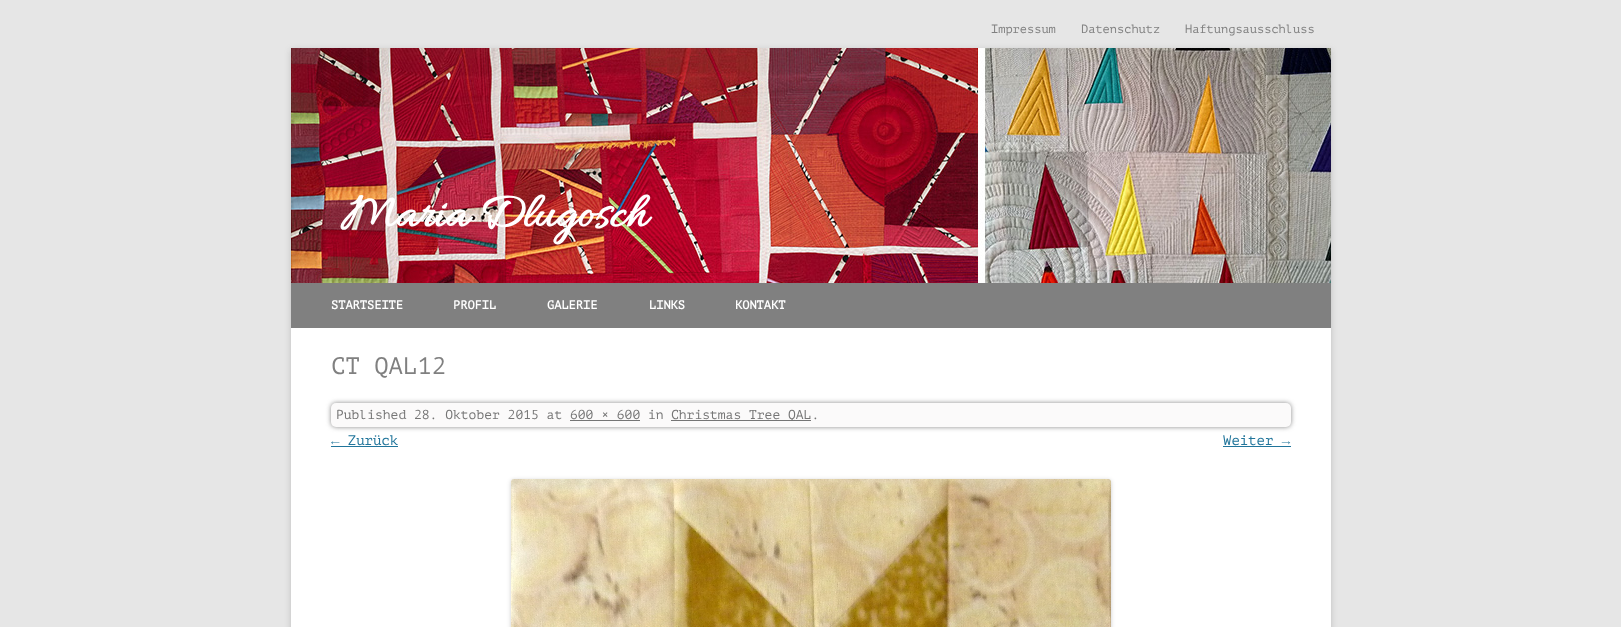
<svg xmlns="http://www.w3.org/2000/svg" width="1621" height="627" viewBox="0 0 1621 627">
  <style>
    .t1 { font: 12px PT Mono; fill: #808080; }
    .t2 { font: bold 50px Allura; fill: #fff; }
    .t3 { font: bold 12px PT Mono; fill: #fff; }
    .t4 { font: 24px PT Mono; fill: #808080; }
    .t5 { font: 13px PT Mono; fill: #757575; }
    .t6 { font: 14px PT Mono; fill: #21759b; }
  </style>
  <rect width="100%" height="100%" fill="#e6e6e6"/>
  <rect x="291" y="50" width="1040" height="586" fill="#6464644d" filter="blur(3px)"/>
  <rect x="291" y="328" width="1040" height="299" fill="#fff"/>
  <image x="291" y="48" width="1040" height="235" href="images/1.png"/>
  <text x="991" y="33" class="t1">Impressum</text>
  <text x="1081" y="33" class="t1">Datenschutz</text>
  <text x="1185" y="33" class="t1">Haftungsausschluss</text>
  <text x="341" y="226" class="t2">Maria Dlugosch</text>
  <rect x="291" y="283" width="1040" height="45" fill="#808080"/>
  <text x="331" y="309" class="t3">STARTSEITE</text>
  <text x="453" y="309" class="t3">PROFIL</text>
  <text x="547" y="309" class="t3">GALERIE</text>
  <text x="649" y="309" class="t3">LINKS</text>
  <text x="735" y="309" class="t3">KONTAKT</text>
  <text x="331" y="374" class="t4">CT QAL12</text>
  <rect x="331" y="403" width="960" height="24" rx="5" fill="#888" filter="blur(2.5px)"/>
  <rect x="331" y="403" width="960" height="24" rx="5" fill="#fbfafa"/>
  <text x="336" y="419" class="t5">Published 28. Oktober 2015 at 600 × 600 in</text>
  <rect x="671" y="420" width="140" height="1" fill="#757575"/>
  <text x="671" y="419" class="t5">Christmas Tree QAL.</text>
  <rect x="570" y="420" width="70" height="1" fill="#757575"/>
  <text x="331" y="445" class="t6">← Zurück</text>
  <rect x="331" y="446" width="67" height="1" fill="#21759b"/>
  <text x="1223" y="445" class="t6">Weiter →</text>
  <rect x="1223" y="446" width="68" height="1" fill="#21759b"/>
  <rect x="511" y="480" width="600" height="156" rx="3" fill="#00000033" filter="blur(2px)"/>
  <image x="511" y="479" width="600" height="148" href="images/2.png"/>
</svg>
